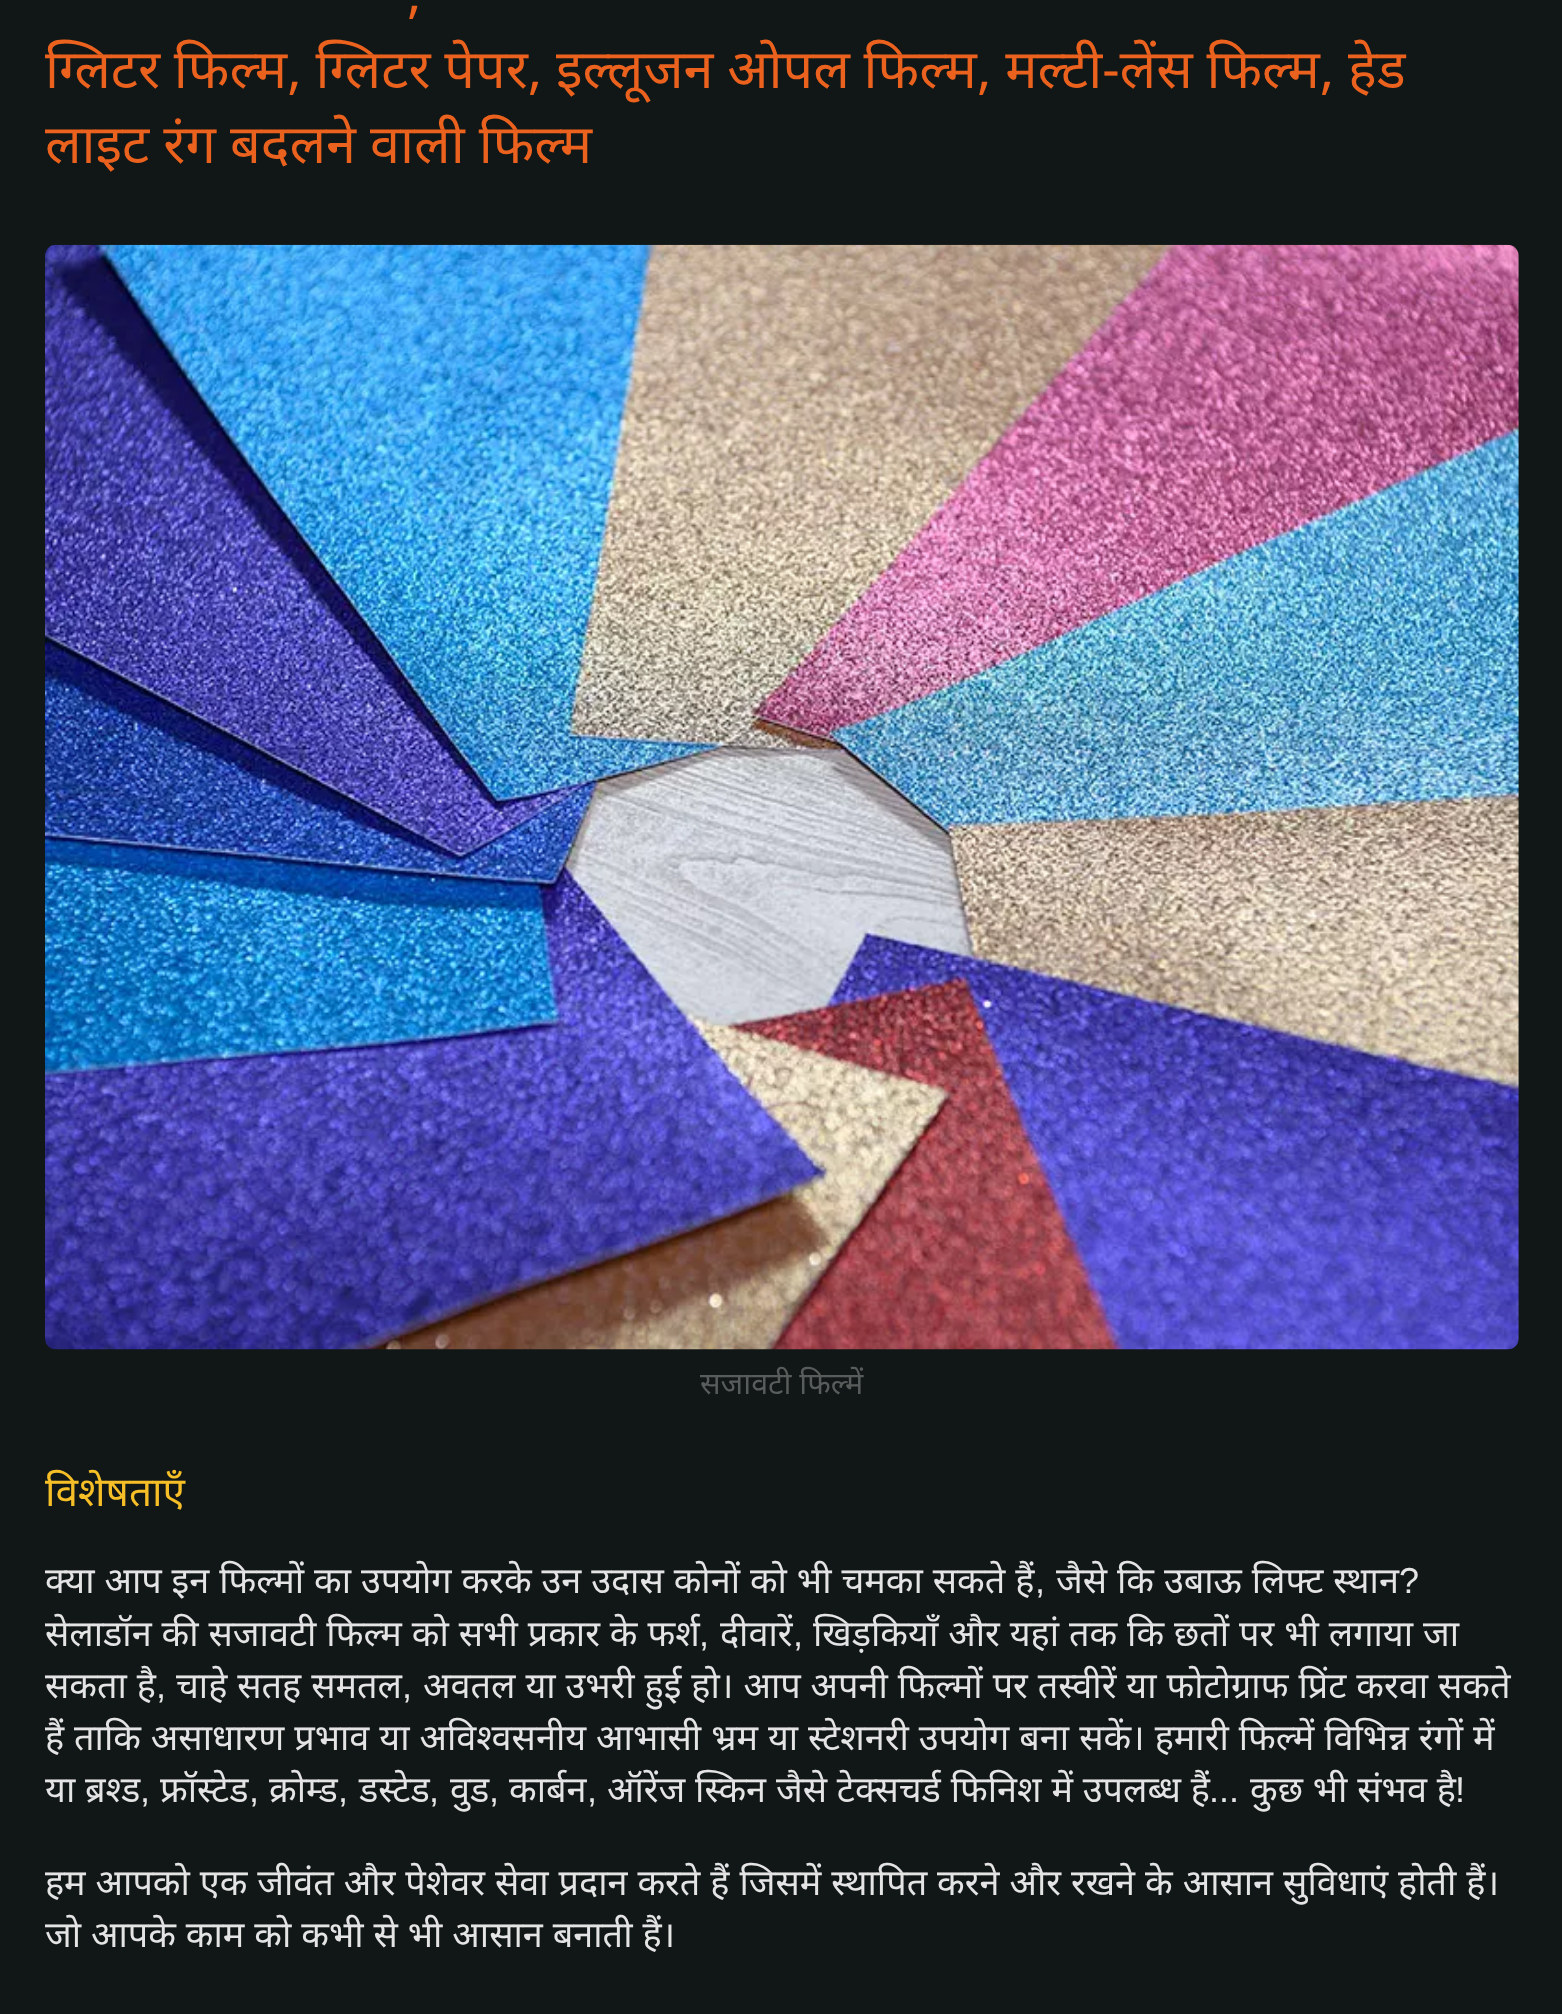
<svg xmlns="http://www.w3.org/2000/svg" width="1562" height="2014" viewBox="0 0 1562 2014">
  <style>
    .t1 { font: 54px Noto Sans; fill: #eb611e; }
    .t2 { font: 30.5px Noto Sans; fill: #585d5c; }
    .t3 { font: 40.5px Noto Sans; fill: #f7bf27; }
    .t4 { font: 36px Noto Sans; fill: #e4e4e4; }
    .t5 { font: 36px Liberation Sans; fill: #e4e4e4; }
  </style>
  <rect width="100%" height="100%" fill="#111716"/>
  <text x="407" y="12" class="t1">,</text>
  <text x="45" y="88" word-spacing="-0.25" class="t1">ग्लिटर फिल्म, ग्लिटर पेपर, इल्लूजन ओपल फिल्म, मल्टी-लेंस फिल्म, हेड</text>
  <text x="45" y="163" class="t1">लाइट रंग बदलने वाली फिल्म</text>
  <image x="45" y="244" width="1474" height="1106" href="images/1.png"/>
  <text x="700" y="1394" class="t2">सजावटी फिल्में</text>
  <text x="45" y="1506" class="t3">विशेषताएँ</text>
  <text x="45" y="1593" word-spacing="0.6" class="t4">क्या आप इन फिल्मों का उपयोग करके उन उदास कोनों को भी चमका सकते हैं</text>
  <text x="1035" y="1593" class="t5">,</text>
  <text x="1056" y="1593" word-spacing="0.6" class="t4">जैसे कि उबाऊ लिफ्ट स्थान</text>
  <text x="1399" y="1593" class="t5">?</text>
  <text x="45" y="1646" word-spacing="0.6" class="t4">सेलाडॉन की सजावटी फिल्म को सभी प्रकार के फर्श</text>
  <text x="699" y="1646" class="t5">,</text>
  <text x="720" y="1646" class="t4">दीवारें</text>
  <text x="793" y="1646" class="t5">,</text>
  <text x="813" y="1646" word-spacing="0.6" class="t4">खिड़कियाँ और यहां तक कि छतों पर भी लगाया जा</text>
  <text x="45" y="1698" word-spacing="0.6" class="t4">सकता है</text>
  <text x="156" y="1698" class="t5">,</text>
  <text x="176" y="1698" word-spacing="0.6" class="t4">चाहे सतह समतल</text>
  <text x="402" y="1698" class="t5">,</text>
  <text x="423" y="1698" word-spacing="0.6" class="t4">अवतल या उभरी हुई हो। आप अपनी फिल्मों पर तस्वीरें या फोटोग्राफ प्रिंट करवा सकते</text>
  <text x="45" y="1750" word-spacing="0.6" class="t4">हैं ताकि असाधारण प्रभाव या अविश्वसनीय आभासी भ्रम या स्टेशनरी उपयोग बना सकें। हमारी फिल्में विभिन्न रंगों में</text>
  <text x="45" y="1802" word-spacing="0.5" class="t4">या ब्रश्ड</text>
  <text x="140" y="1802" class="t5">,</text>
  <text x="160" y="1802" class="t4">फ्रॉस्टेड</text>
  <text x="249" y="1802" class="t5">,</text>
  <text x="269" y="1802" class="t4">क्रोम्ड</text>
  <text x="338" y="1802" class="t5">,</text>
  <text x="359" y="1802" class="t4">डस्टेड</text>
  <text x="429" y="1802" class="t5">,</text>
  <text x="450" y="1802" class="t4">वुड</text>
  <text x="509" y="1802" class="t4">कार्बन</text>
  <text x="607" y="1802" word-spacing="0.5" class="t4">ऑरेंज स्किन जैसे टेक्सचर्ड फिनिश में उपलब्ध हैं</text>
  <text x="1209" y="1802" class="t5">...</text>
  <text x="1250" y="1802" word-spacing="0.5" class="t4">कुछ भी संभव है</text>
  <text x="1455" y="1802" class="t5">!</text>
  <text x="489" y="1802" class="t5">,</text>
  <text x="587" y="1802" class="t5">,</text>
  <text x="45" y="1895" word-spacing="0.6" class="t4">हम आपको एक जीवंत और पेशेवर सेवा प्रदान करते हैं जिसमें स्थापित करने और रखने के आसान सुविधाएं होती हैं।</text>
  <text x="45" y="1947" word-spacing="0.6" class="t4">जो आपके काम को कभी से भी आसान बनाती हैं।</text>
</svg>
